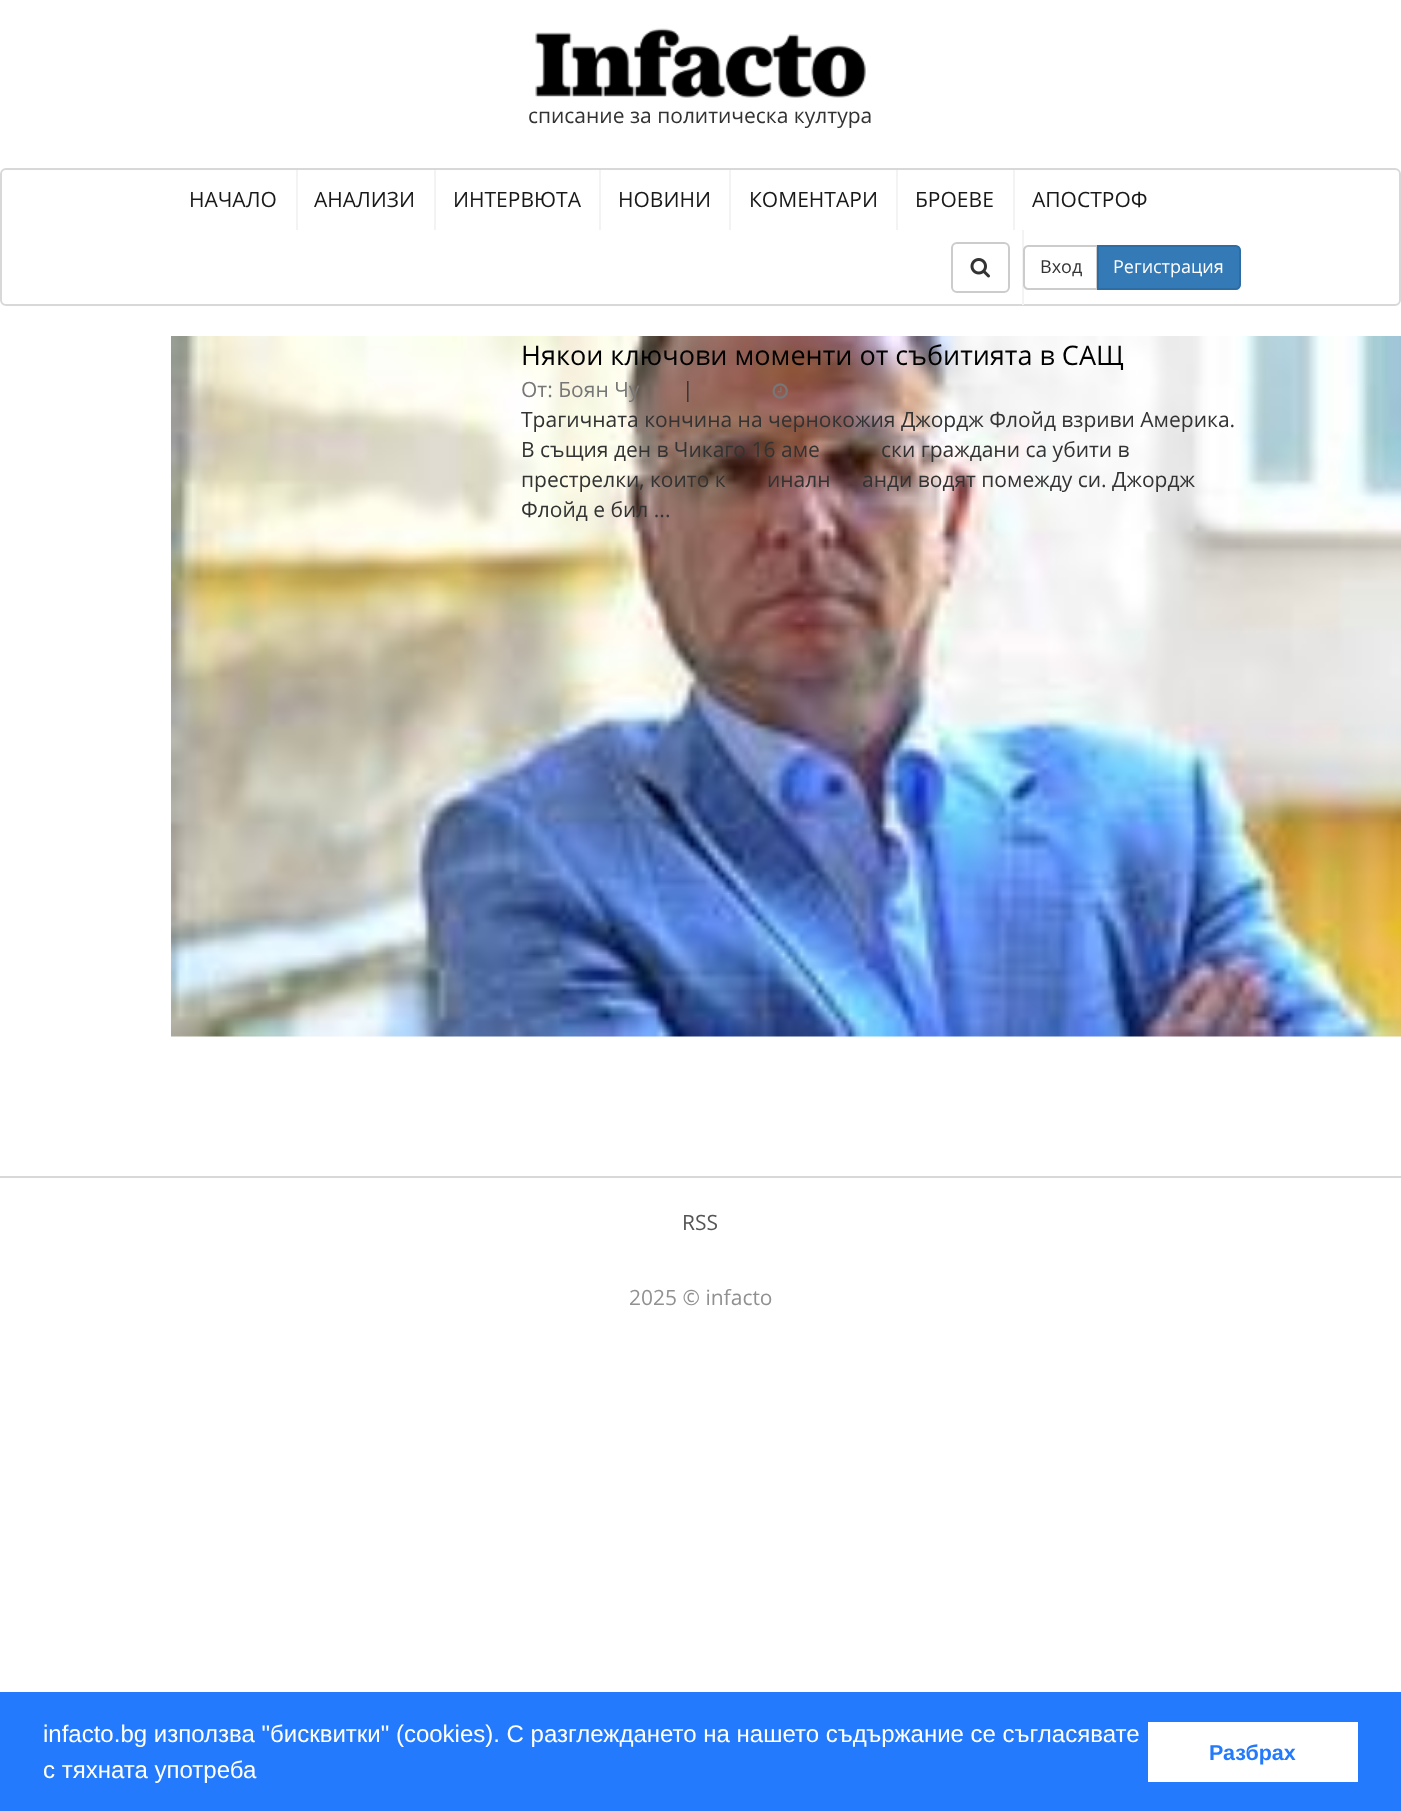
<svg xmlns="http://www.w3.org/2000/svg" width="1401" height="1811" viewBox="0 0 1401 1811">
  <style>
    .t1 { font: 21px Open Sans; fill: #333; }
    .t2 { font: 21px Open Sans; fill: #1a1919; }
    .t3 { font: 18px Open Sans; fill: #333; }
    .t4 { font: 18px Open Sans; fill: #fff; }
    .t5 { font: 27px Open Sans; fill: #000; }
    .t6 { font: 21px Open Sans; fill: #777; }
    .t7 { font: 21px Open Sans; fill: #555; }
    .t8 { font: 21px Open Sans; fill: #919191; }
    .t9 { font: 24px Liberation Sans; fill: #fff; }
    .t10 { font: bold 21.5px Liberation Sans; fill: #237afc; }
  </style>
  <rect width="100%" height="100%" fill="#fff"/>
  <image x="535" y="28" width="331" height="70" href="images/1.png"/>
  <text x="528" y="123" class="t1">списание за политическа култура</text>
  <rect x="1" y="169" width="1399" height="136" rx="5" fill="none" stroke="#d8d8d8" stroke-width="2"/>
  <text x="189" y="207" class="t2">НАЧАЛО</text>
  <rect x="296" y="170" width="2" height="60" fill="#f3f3f3"/>
  <text x="314" y="207" class="t2">АНАЛИЗИ</text>
  <rect x="434" y="170" width="2" height="60" fill="#f3f3f3"/>
  <text x="453" y="207" class="t2">ИНТЕРВЮТА</text>
  <rect x="599" y="170" width="2" height="60" fill="#f3f3f3"/>
  <text x="618" y="207" class="t2">НОВИНИ</text>
  <rect x="729" y="170" width="2" height="60" fill="#f3f3f3"/>
  <text x="749" y="207" class="t2">КОМЕНТАРИ</text>
  <rect x="896" y="170" width="2" height="60" fill="#f3f3f3"/>
  <text x="915" y="207" class="t2">БРОЕВЕ</text>
  <rect x="1013" y="170" width="2" height="60" fill="#f3f3f3"/>
  <text x="1032" y="207" class="t2">АПОСТРОФ</text>
  <rect x="952" y="243" width="57" height="49" rx="5" fill="none" stroke="#ccc" stroke-width="2"/>
  <image x="970" y="258" width="20" height="20" href="images/2.png"/>
  <rect x="1022" y="230" width="2" height="75" fill="#f3f3f3"/>
  <path d="M1028 246H1097V289H1028C1026 289 1024 287 1024 285V250C1024 248 1026 246 1028 246Z" fill="#fff" stroke="#ccc" stroke-width="2"/>
  <text x="1040" y="273" class="t3">Вход</text>
  <path d="M1098 246H1236C1238 246 1240 248 1240 250V285C1240 287 1238 289 1236 289H1098Z" fill="#337ab7" stroke="#2e6da4" stroke-width="2"/>
  <text x="1113" y="273" class="t4">Регистрация</text>
  <image x="171" y="336" width="1230" height="701" href="images/3.png"/>
  <text x="521" y="365" class="t5">Някои ключови моменти от събитията в САЩ</text>
  <text x="521" y="397" class="t6">От: Боян Чу</text>
  <text x="682" y="397" class="t1">|</text>
  <image x="772" y="383" width="16" height="16" href="images/4.png"/>
  <text x="521" y="427" class="t1">Трагичната кончина на чернокожия Джордж Флойд взриви Америка.</text>
  <text x="521" y="457" class="t1">В същия ден в Чикаго 16 аме</text>
  <text x="881" y="457" class="t1">ски граждани са убити в</text>
  <text x="521" y="487" class="t1">престрелки, които к</text>
  <text x="767" y="487" class="t1">иналн</text>
  <text x="862" y="487" class="t1">анди водят помежду си. Джордж</text>
  <text x="521" y="517" class="t1">Флойд е бил ...</text>
  <rect x="0" y="1176" width="1401" height="2" fill="#d8d8d8"/>
  <text x="682" y="1230" class="t7">RSS</text>
  <text x="629" y="1305" class="t8">2025 © infacto</text>
  <rect x="0" y="1692" width="1401" height="119" fill="#237afc"/>
  <text x="43" y="1742" class="t9">infacto.bg използва "бисквитки" (cookies). С разглеждането на нашето съдържание се съгласявате</text>
  <text x="43" y="1778" class="t9">с тяхната употреба</text>
  <rect x="1148" y="1722" width="210" height="60" fill="#fff"/>
  <text x="1209" y="1760" class="t10">Разбрах</text>
</svg>
